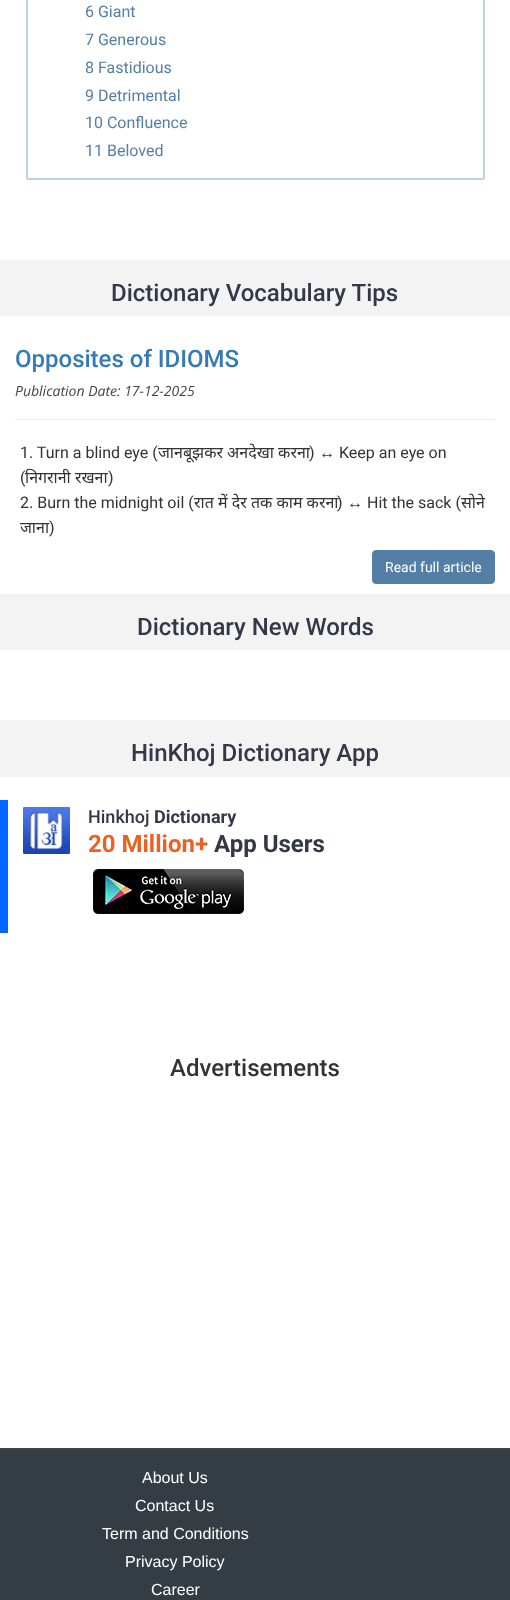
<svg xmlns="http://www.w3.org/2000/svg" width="510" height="1600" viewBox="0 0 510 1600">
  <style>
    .t1 { font: 16px Roboto; fill: #537ea6; }
    .t2 { font: 500 24px Roboto; fill: #323848; }
    .t3 { font: 500 24px Roboto; fill: #337ab7; }
    .t4 { font: italic 14px Open Sans; fill: #444; }
    .t5 { font: 16px Roboto; fill: #333; }
    .t6 { font: 16px Noto Sans; fill: #333; }
    .t7 { font: 16px Liberation Sans; fill: #333; }
    .t8 { font: 14px Roboto; fill: #fff; }
    .t9 { font: 500 18px Roboto; fill: #323848; }
    .t10 { font: bold 18px Roboto; fill: #323848; }
    .t11 { font: bold 24px Roboto; fill: #ec6123; }
    .t12 { font: bold 24px Roboto; fill: #323848; }
    .t13 { font: 500 24px Roboto; fill: #333; }
    .t14 { font: 16px Liberation Sans; fill: #fff; }
  </style>
  <rect width="100%" height="100%" fill="#fff"/>
  <rect x="27" y="-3" width="457" height="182" rx="1" fill="none" stroke="#bcd4e2" stroke-width="2"/>
  <text x="85" y="17" class="t1">6 Giant</text>
  <text x="85" y="45" class="t1">7 Generous</text>
  <text x="85" y="73" class="t1">8 Fastidious</text>
  <text x="85" y="101" class="t1">9 Detrimental</text>
  <text x="85" y="128" class="t1">10 Confluence</text>
  <text x="85" y="156" class="t1">11 Beloved</text>
  <rect x="0" y="260" width="510" height="56" fill="#f4f3f3"/>
  <text x="111" y="301" class="t2">Dictionary Vocabulary Tips</text>
  <text x="15" y="367" class="t3">Opposites of IDIOMS</text>
  <text x="15" y="396" class="t4">Publication Date: 17-12-2025</text>
  <rect x="15" y="419" width="480" height="1" fill="#eee"/>
  <text x="20" y="458" class="t5">1. Turn a blind eye (</text>
  <text x="158" y="458" class="t6">जानबूझकर अनदेखा करना</text>
  <text x="309" y="458" class="t5">)</text>
  <text x="319" y="458" class="t7">↔</text>
  <text x="339" y="458" class="t5">Keep an eye on</text>
  <text x="20" y="483" class="t5">(</text>
  <text x="25" y="483" class="t6">निगरानी रखना</text>
  <text x="108" y="483" class="t5">)</text>
  <text x="20" y="508" class="t5">2. Burn the midnight oil (</text>
  <text x="194" y="508" class="t6">रात में देर तक काम करना</text>
  <text x="337" y="508" class="t5">)</text>
  <text x="347" y="508" class="t7">↔</text>
  <text x="367" y="508" class="t5">Hit the sack (</text>
  <text x="461" y="508" class="t6">सोने</text>
  <text x="20" y="533" class="t6">जाना</text>
  <text x="49" y="533" class="t5">)</text>
  <rect x="372.5" y="550.5" width="122" height="33" rx="3.5" fill="#537ea6" stroke="#537ea6"/>
  <text x="385" y="572" class="t8">Read full article</text>
  <rect x="0" y="594" width="510" height="56" fill="#f4f3f3"/>
  <text x="137" y="635" class="t2">Dictionary New Words</text>
  <rect x="0" y="720" width="510" height="57" fill="#f4f3f3"/>
  <text x="131" y="761" class="t2">HinKhoj Dictionary App</text>
  <rect x="0" y="800" width="8" height="133" fill="#06f"/>
  <image x="23" y="807" width="47" height="47" href="images/1.png"/>
  <text x="88" y="823" class="t9">Hinkhoj</text>
  <text x="154" y="823" class="t10">Dictionary</text>
  <text x="88" y="852" class="t11">20 Million+</text>
  <text x="214" y="852" class="t12">App Users</text>
  <image x="93" y="869" width="151" height="45" href="images/2.png"/>
  <text x="170" y="1076" class="t13">Advertisements</text>
  <rect x="0" y="1450" width="510" height="150" fill="#353d44"/>
  <rect x="0" y="1448" width="510" height="2" fill="#444"/>
  <text x="142" y="1483" class="t14">About Us</text>
  <text x="135" y="1511" class="t14">Contact Us</text>
  <text x="102" y="1539" class="t14">Term and Conditions</text>
  <text x="125" y="1567" class="t14">Privacy Policy</text>
  <text x="151" y="1595" class="t14">Career</text>
</svg>
